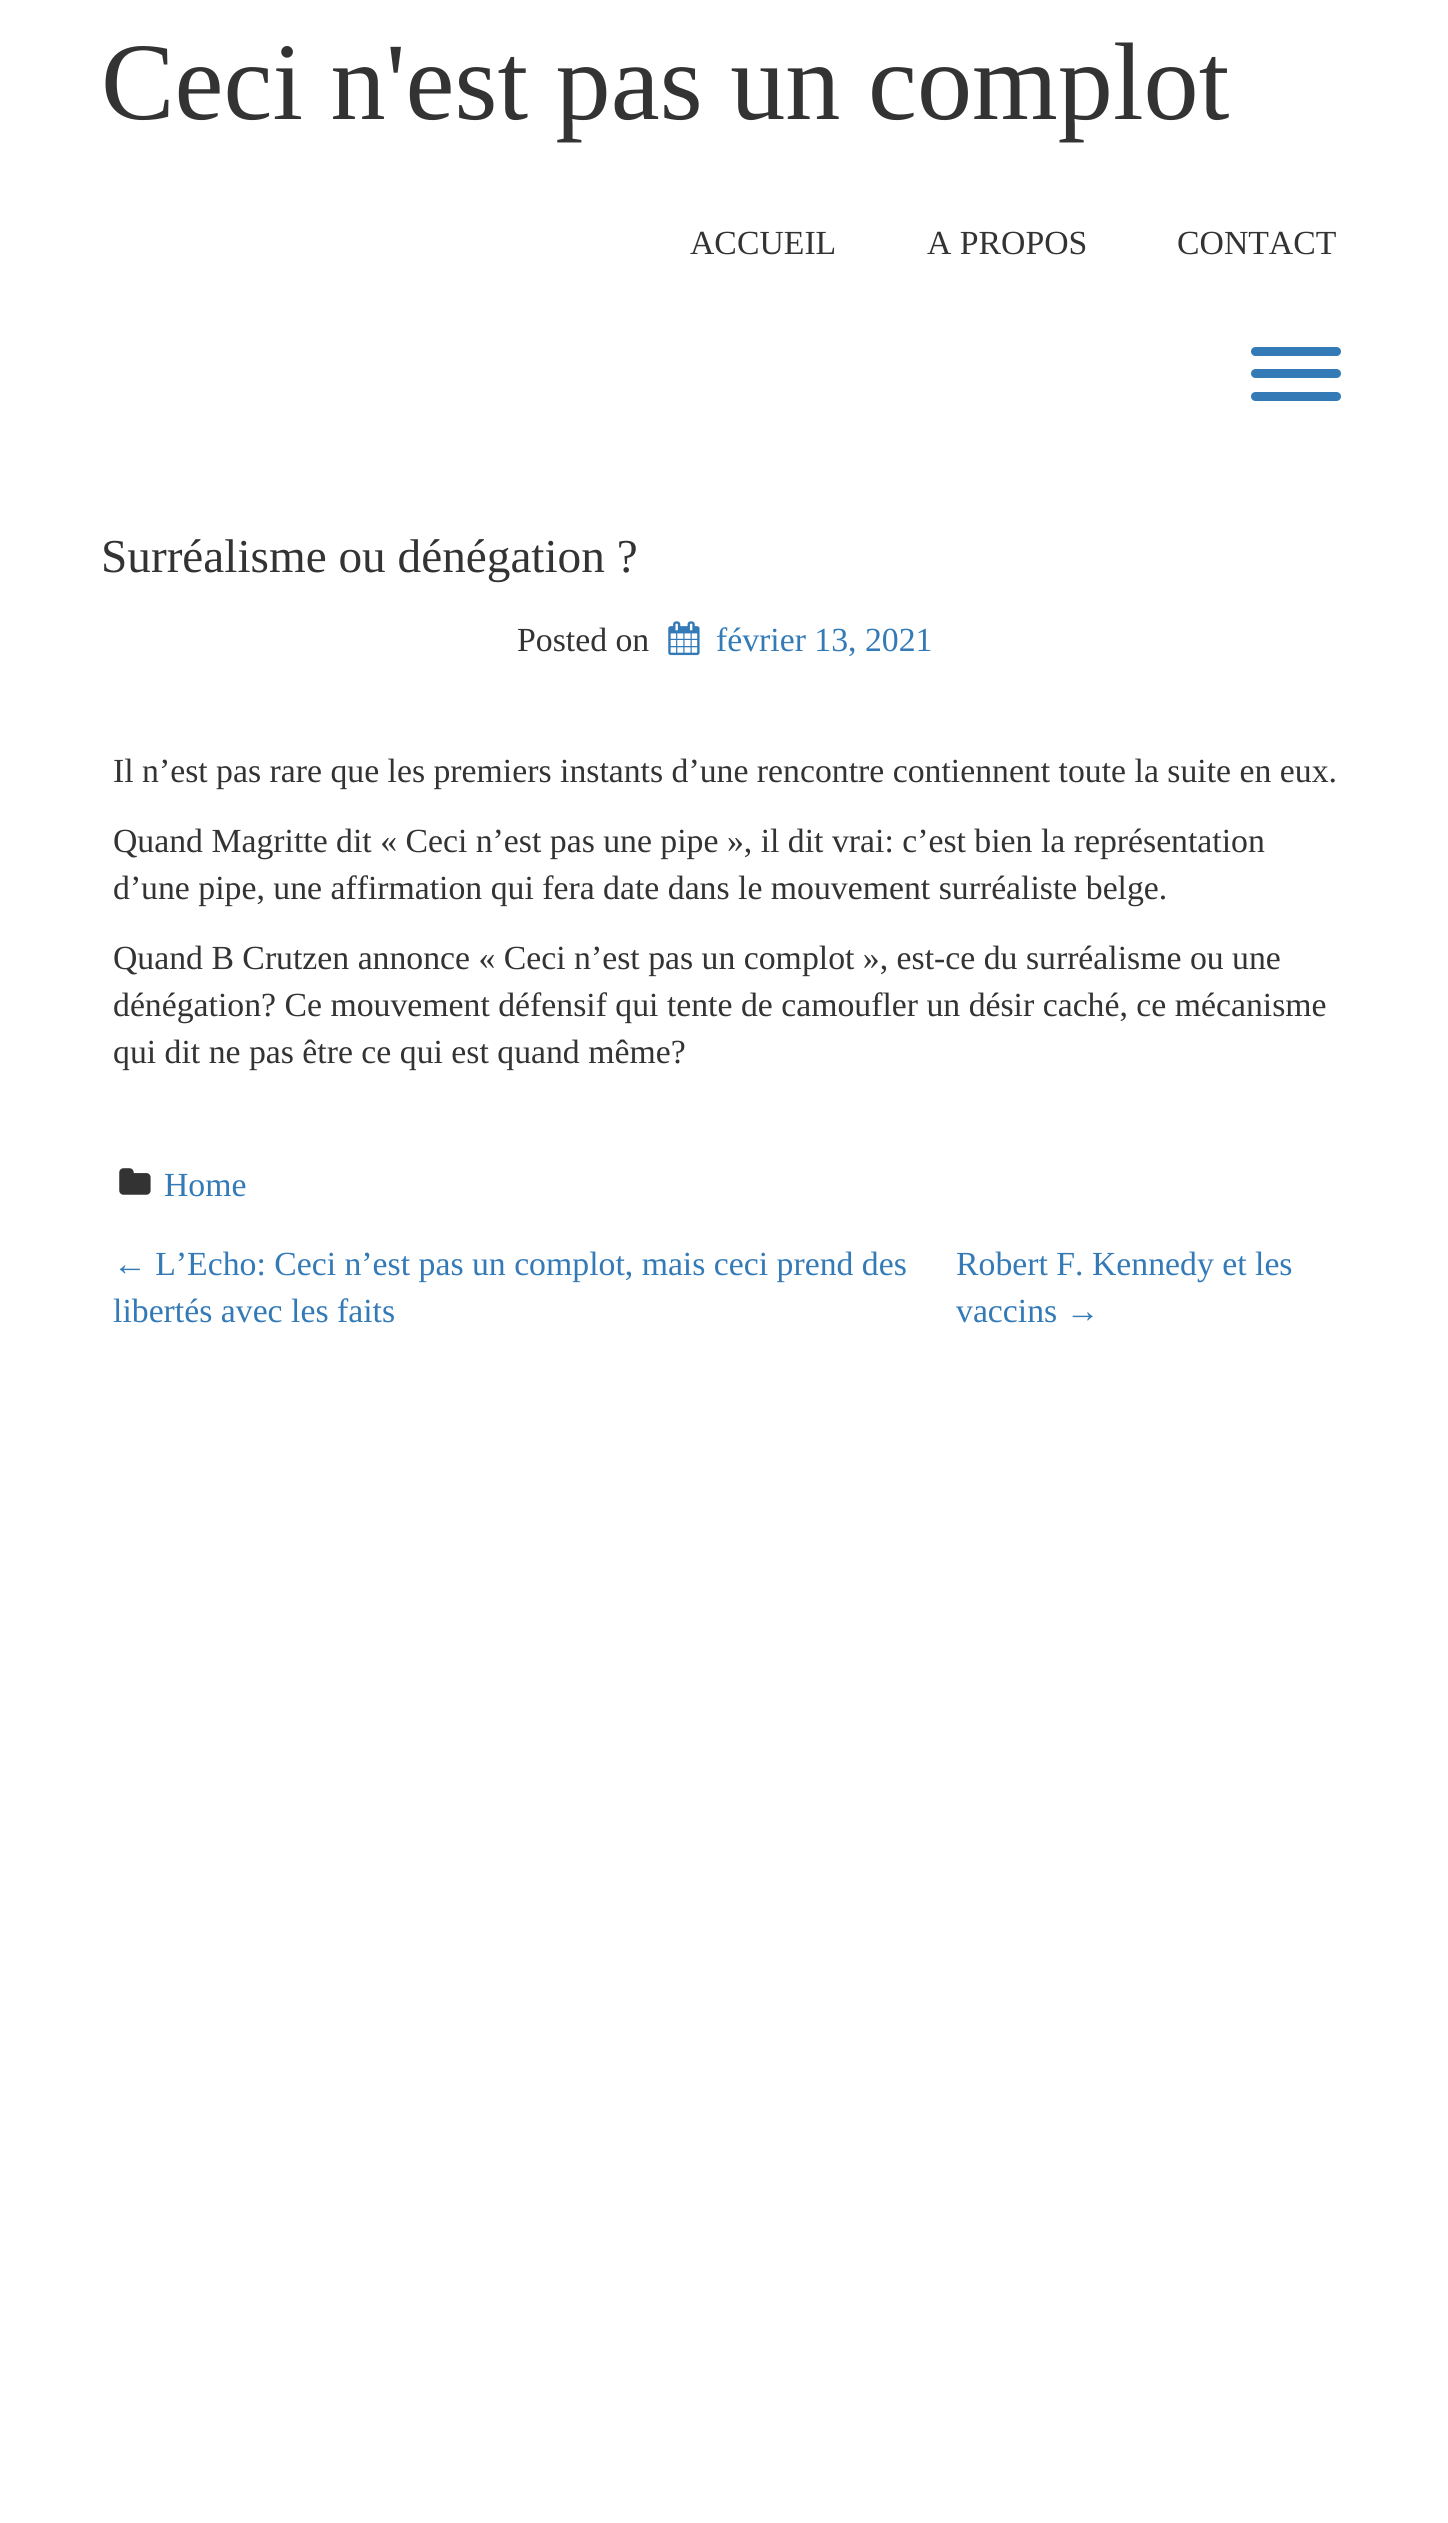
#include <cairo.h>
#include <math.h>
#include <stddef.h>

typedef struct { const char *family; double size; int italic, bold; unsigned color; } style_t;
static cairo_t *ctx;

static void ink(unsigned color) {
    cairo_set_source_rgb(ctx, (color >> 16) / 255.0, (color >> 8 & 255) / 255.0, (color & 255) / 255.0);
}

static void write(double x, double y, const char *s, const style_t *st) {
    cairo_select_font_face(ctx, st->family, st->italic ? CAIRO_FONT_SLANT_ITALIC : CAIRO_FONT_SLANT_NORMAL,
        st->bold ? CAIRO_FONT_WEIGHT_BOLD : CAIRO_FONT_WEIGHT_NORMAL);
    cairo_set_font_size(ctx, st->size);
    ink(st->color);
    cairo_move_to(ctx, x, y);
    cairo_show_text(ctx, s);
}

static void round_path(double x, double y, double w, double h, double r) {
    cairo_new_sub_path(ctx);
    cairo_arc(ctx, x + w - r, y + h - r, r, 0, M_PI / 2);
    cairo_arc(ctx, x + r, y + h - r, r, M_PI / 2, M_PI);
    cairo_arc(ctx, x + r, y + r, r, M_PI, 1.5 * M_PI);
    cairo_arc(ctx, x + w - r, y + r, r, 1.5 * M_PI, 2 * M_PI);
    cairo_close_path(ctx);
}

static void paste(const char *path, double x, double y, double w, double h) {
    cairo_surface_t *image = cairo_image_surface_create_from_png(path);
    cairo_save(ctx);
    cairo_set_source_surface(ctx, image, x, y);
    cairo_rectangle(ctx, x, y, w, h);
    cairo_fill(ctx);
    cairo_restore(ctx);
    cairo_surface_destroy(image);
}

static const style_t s1 = {"Liberation Serif", 110.25, 0, 0, 0x333333};
static const style_t s2 = {"Liberation Serif", 33.75, 0, 0, 0x333333};
static const style_t s3 = {"Liberation Serif", 47.25, 0, 0, 0x333333};
static const style_t s4 = {"Liberation Serif", 33.75, 0, 0, 0x337ab7};

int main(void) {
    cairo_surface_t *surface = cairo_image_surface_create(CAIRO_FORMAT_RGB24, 1448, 2523);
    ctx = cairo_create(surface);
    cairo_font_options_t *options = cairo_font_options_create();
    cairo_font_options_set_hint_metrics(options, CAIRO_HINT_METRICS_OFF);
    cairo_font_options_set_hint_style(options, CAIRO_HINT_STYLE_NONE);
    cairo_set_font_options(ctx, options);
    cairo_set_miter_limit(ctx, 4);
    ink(0xffffff);
    cairo_paint(ctx);
    write(101, 119, "Ceci n'est pas un complot", &s1);
    write(690, 254, "ACCUEIL", &s2);
    write(927, 254, "A PROPOS", &s2);
    write(1177, 254, "CONTACT", &s2);
    ink(0x337ab7);
    round_path(1251, 392, 90, 9, 4.5);
    cairo_fill(ctx);
    round_path(1251, 347, 90, 9, 4.5);
    cairo_fill(ctx);
    round_path(1251, 369, 90, 9, 4.5);
    cairo_fill(ctx);
    write(101, 572, "Surréalisme ou dénégation ?", &s3);
    write(517, 651, "Posted on", &s2);
    paste("pic1.png", 668, 621, 32, 35);
    write(716, 651, "février 13, 2021", &s4);
    write(113, 782, "Il n’est pas rare que les premiers instants d’une rencontre contiennent toute la suite en eux.", &s2);
    write(113, 852, "Quand Magritte dit « Ceci n’est pas une pipe », il dit vrai: c’est bien la représentation", &s2);
    write(113, 899, "d’une pipe, une affirmation qui fera date dans le mouvement surréaliste belge.", &s2);
    write(113, 969, "Quand B Crutzen annonce « Ceci n’est pas un complot », est-ce du surréalisme ou une", &s2);
    write(113, 1016, "dénégation? Ce mouvement défensif qui tente de camoufler un désir caché, ce mécanisme", &s2);
    write(113, 1063, "qui dit ne pas être ce qui est quand même?", &s2);
    paste("pic2.png", 119, 1168, 32, 27);
    write(164, 1196, "Home", &s4);
    write(113, 1275, "← L’Echo: Ceci n’est pas un complot, mais ceci prend des", &s4);
    write(113, 1322, "libertés avec les faits", &s4);
    write(956, 1275, "Robert F. Kennedy et les", &s4);
    write(956, 1322, "vaccins →", &s4);
    cairo_surface_write_to_png(surface, "screenshot.png");
    cairo_font_options_destroy(options);
    cairo_destroy(ctx);
    cairo_surface_destroy(surface);
    return 0;
}
